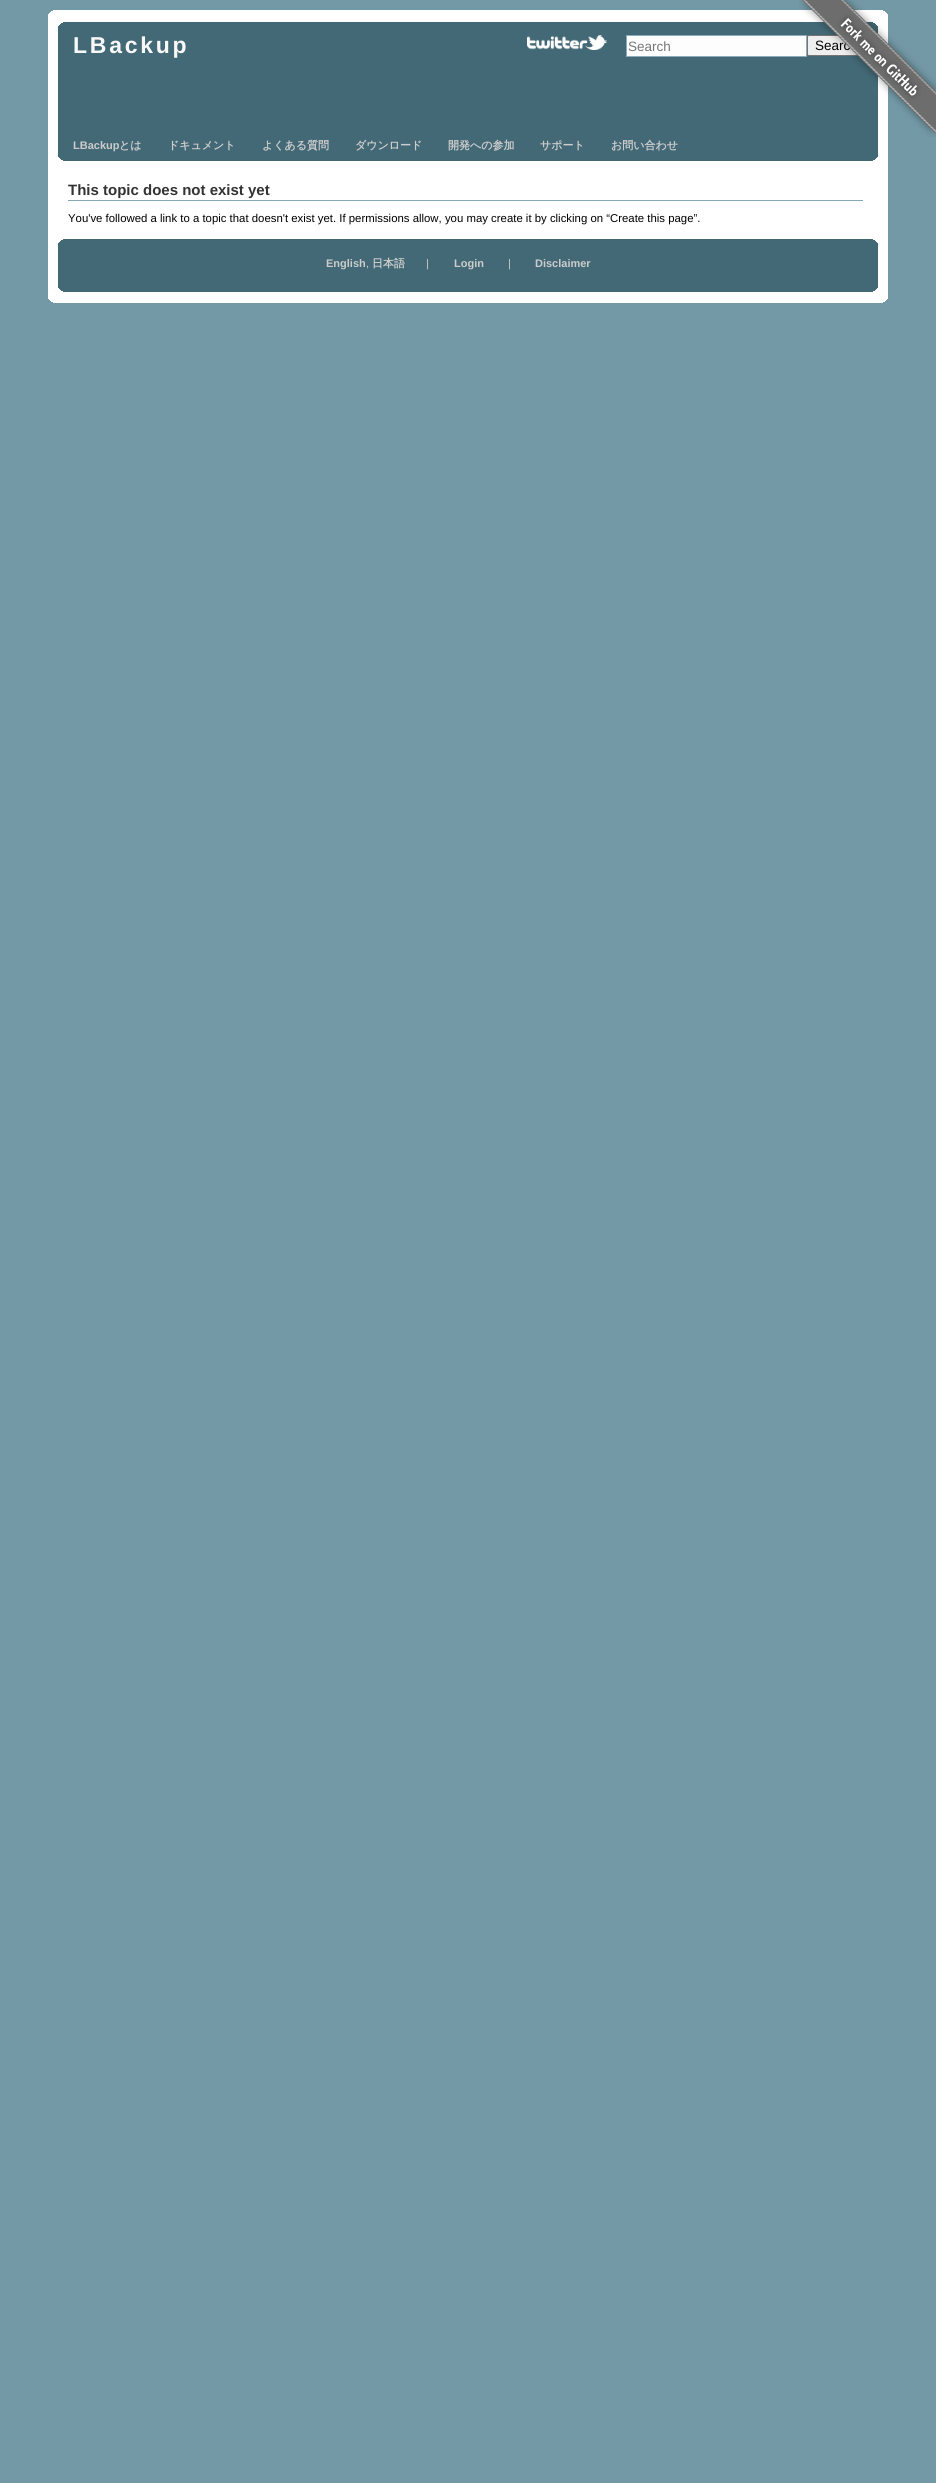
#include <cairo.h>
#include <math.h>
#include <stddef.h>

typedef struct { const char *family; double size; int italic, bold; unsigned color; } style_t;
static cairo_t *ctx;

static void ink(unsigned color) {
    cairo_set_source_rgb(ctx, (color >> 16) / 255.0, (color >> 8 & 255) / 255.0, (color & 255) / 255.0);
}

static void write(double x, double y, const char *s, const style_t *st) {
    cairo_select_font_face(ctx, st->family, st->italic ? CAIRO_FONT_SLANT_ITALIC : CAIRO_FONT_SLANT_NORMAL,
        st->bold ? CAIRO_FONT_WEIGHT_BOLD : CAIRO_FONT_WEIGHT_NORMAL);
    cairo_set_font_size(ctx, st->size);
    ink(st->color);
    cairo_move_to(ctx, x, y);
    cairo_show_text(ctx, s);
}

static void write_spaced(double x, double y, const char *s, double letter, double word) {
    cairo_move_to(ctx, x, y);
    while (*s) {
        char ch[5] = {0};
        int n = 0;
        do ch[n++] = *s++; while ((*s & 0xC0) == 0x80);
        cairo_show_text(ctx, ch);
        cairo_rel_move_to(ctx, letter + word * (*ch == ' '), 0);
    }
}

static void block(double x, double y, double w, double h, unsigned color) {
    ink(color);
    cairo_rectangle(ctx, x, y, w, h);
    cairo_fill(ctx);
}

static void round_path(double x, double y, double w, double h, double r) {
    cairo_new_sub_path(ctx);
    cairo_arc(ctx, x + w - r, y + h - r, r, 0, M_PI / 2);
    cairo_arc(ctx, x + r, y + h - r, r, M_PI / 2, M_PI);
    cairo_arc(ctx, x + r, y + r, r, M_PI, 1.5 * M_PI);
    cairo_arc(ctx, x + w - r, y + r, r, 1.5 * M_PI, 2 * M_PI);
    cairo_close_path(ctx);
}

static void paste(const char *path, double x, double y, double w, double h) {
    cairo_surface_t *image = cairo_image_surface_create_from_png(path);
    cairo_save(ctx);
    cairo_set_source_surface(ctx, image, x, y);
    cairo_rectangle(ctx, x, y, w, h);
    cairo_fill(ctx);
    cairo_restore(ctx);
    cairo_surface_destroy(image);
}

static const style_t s1 = {"Liberation Sans", 13.5, 0, 0, 0x757575};
static const style_t s2 = {"Liberation Sans", 13.5, 0, 0, 0x000000};
static const style_t s3 = {"Liberation Sans", 11, 0, 1, 0xcccccc};
static const style_t s4 = {"WenQuanYi Zen Hei", 11, 0, 1, 0xcccccc};
static const style_t s5 = {"Liberation Sans", 15, 0, 1, 0x333333};
static const style_t s6 = {"Liberation Sans", 11.38, 0, 0, 0x000000};
static const style_t s7 = {"Liberation Sans", 11, 0, 0, 0xcccccc};

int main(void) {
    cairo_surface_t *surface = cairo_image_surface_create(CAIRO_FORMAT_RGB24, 936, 2483);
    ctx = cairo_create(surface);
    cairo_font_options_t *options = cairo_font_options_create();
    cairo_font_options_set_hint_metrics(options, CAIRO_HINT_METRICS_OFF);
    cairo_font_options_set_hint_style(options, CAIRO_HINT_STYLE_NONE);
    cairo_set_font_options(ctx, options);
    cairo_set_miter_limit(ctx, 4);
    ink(0x7399a6);
    cairo_paint(ctx);
    block(48, 14, 840, 285, 0xffffff);
    block(53, 10, 830, 1, 0xffffff);
    block(51, 11, 834, 1, 0xffffff);
    block(50, 12, 836, 1, 0xffffff);
    block(49, 13, 838, 1, 0xffffff);
    block(58, 26, 820, 131, 0x436976);
    block(63, 22, 810, 1, 0x436976);
    block(61, 23, 814, 1, 0x436976);
    block(60, 24, 816, 1, 0x436976);
    block(59, 25, 818, 1, 0x436976);
    cairo_select_font_face(ctx, "Liberation Sans", CAIRO_FONT_SLANT_NORMAL, CAIRO_FONT_WEIGHT_BOLD);
    cairo_set_font_size(ctx, 23);
    ink(0xf8f8f8);
    write_spaced(73, 53, "LBackup", 2.75, 0);
    paste("pic1.png", 527, 35, 80, 15);
    ink(0xfdfdfd);
    cairo_rectangle(ctx, 626.5, 35.5, 180, 21);
    cairo_fill_preserve(ctx);
    ink(0x8cacbb);
    cairo_set_line_width(ctx, 1);
    cairo_stroke(ctx);
    write(628, 51, "Search", &s1);
    ink(0xefefef);
    round_path(807.5, 35.5, 57, 20, 1.5);
    cairo_fill_preserve(ctx);
    ink(0x767676);
    cairo_stroke(ctx);
    write(815, 50, "Searc", &s2);
    write(73, 149, "LBackup", &s3);
    write(119, 149, "とは", &s4);
    write(168, 149, "ドキュメント", &s4);
    write(262, 149, "よくある質問", &s4);
    write(355, 149, "ダウンロード", &s4);
    write(448, 149, "開発への参加", &s4);
    write(540, 149, "サポート", &s4);
    write(611, 149, "お問い合わせ", &s4);
    block(59, 157, 818, 1, 0x436976);
    block(60, 158, 816, 1, 0x436976);
    block(61, 159, 814, 1, 0x436976);
    block(63, 160, 810, 1, 0x436976);
    block(68, 200, 795, 1, 0x83a9b6);
    write(68, 195, "This topic does not exist yet", &s5);
    write(68, 222, "You've followed a link to a topic that doesn't exist yet. If permissions allow, you may create it by clicking on “Create this page”.", &s6);
    block(58, 243, 820, 45, 0x436976);
    block(63, 239, 810, 1, 0x436976);
    block(61, 240, 814, 1, 0x436976);
    block(60, 241, 816, 1, 0x436976);
    block(59, 242, 818, 1, 0x436976);
    write(326, 267, "English", &s3);
    write(366, 267, ",", &s7);
    write(372, 267, "日本語", &s4);
    write(426, 267, "|", &s7);
    write(454, 267, "Login", &s3);
    write(508, 267, "|", &s7);
    write(535, 267, "Disclaimer", &s3);
    block(59, 288, 818, 1, 0x436976);
    block(60, 289, 816, 1, 0x436976);
    block(61, 290, 814, 1, 0x436976);
    block(63, 291, 810, 1, 0x436976);
    block(49, 299, 838, 1, 0xffffff);
    block(50, 300, 836, 1, 0xffffff);
    block(51, 301, 834, 1, 0xffffff);
    block(53, 302, 830, 1, 0xffffff);
    paste("pic2.png", 799, 0, 137, 137);
    cairo_surface_write_to_png(surface, "screenshot.png");
    cairo_font_options_destroy(options);
    cairo_destroy(ctx);
    cairo_surface_destroy(surface);
    return 0;
}
